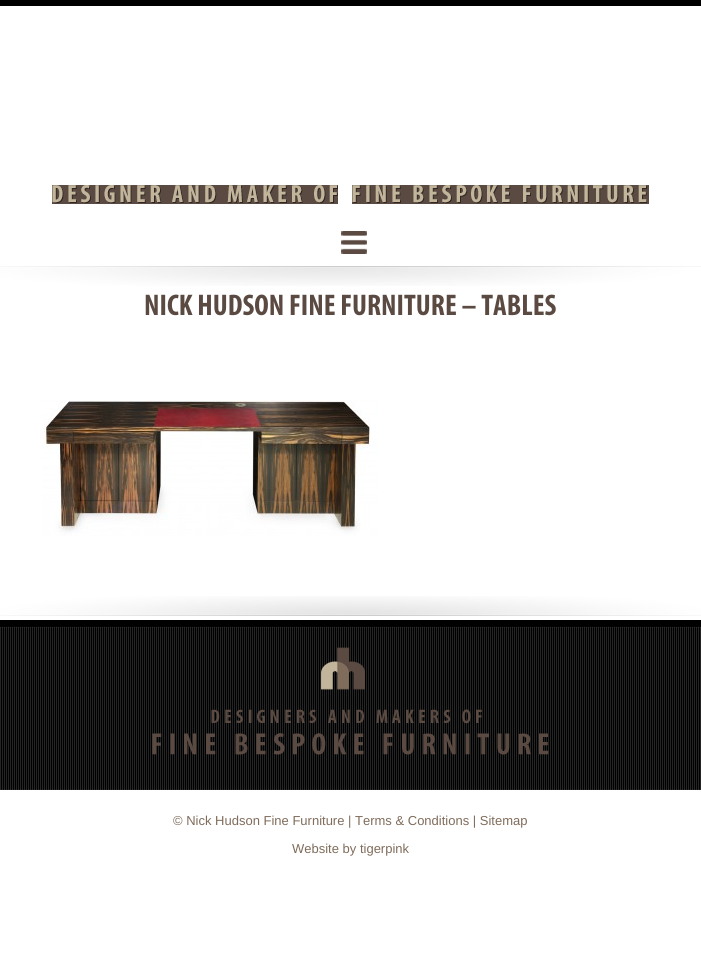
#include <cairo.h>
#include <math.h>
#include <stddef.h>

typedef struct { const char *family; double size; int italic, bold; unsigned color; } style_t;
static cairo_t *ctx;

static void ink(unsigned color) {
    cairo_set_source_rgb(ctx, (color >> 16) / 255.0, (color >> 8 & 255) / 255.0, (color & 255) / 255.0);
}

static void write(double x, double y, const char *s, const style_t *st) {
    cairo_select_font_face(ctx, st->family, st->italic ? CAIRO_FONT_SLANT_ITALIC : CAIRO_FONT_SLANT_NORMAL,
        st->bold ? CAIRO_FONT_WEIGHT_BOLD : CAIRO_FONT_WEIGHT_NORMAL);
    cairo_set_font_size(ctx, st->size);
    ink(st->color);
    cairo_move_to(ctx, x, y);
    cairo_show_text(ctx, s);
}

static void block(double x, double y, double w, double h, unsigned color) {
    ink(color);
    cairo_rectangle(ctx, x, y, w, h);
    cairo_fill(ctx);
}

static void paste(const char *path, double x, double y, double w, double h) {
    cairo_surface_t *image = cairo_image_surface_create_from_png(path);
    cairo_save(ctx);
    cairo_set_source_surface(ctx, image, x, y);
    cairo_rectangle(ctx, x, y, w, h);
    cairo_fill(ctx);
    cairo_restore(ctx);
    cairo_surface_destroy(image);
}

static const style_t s1 = {"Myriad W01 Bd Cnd", 30, 0, 1, 0x5a4a42};
static const style_t s2 = {"Liberation Sans", 13, 0, 0, 0x7f6c5b};

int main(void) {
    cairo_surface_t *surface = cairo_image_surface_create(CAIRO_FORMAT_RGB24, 701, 963);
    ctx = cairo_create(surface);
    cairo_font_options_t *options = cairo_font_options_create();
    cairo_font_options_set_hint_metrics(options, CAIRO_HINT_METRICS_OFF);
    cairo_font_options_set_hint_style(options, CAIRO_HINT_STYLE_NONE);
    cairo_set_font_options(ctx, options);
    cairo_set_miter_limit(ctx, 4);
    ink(0xffffff);
    cairo_paint(ctx);
    block(0, 0, 701, 6, 0x000000);
    paste("pic1.png", 52, 185, 286, 19);
    paste("pic2.png", 352, 185, 297, 19);
    paste("pic3.png", 341, 231, 26, 23);
    paste("pic4.png", 0, 266, 701, 20);
    paste("pic5.png", 0, 596, 701, 20);
    write(144, 315, "NICK HUDSON FINE FURNITURE – TABLES", &s1);
    paste("pic6.png", 42, 400, 336, 136);
    paste("pic7.png", 0, 620, 701, 170);
    paste("pic8.png", 152, 647, 397, 108);
    write(173, 825, "© Nick Hudson Fine Furniture | Terms & Conditions | Sitemap", &s2);
    write(292, 853, "Website by tigerpink", &s2);
    cairo_surface_write_to_png(surface, "screenshot.png");
    cairo_font_options_destroy(options);
    cairo_destroy(ctx);
    cairo_surface_destroy(surface);
    return 0;
}
